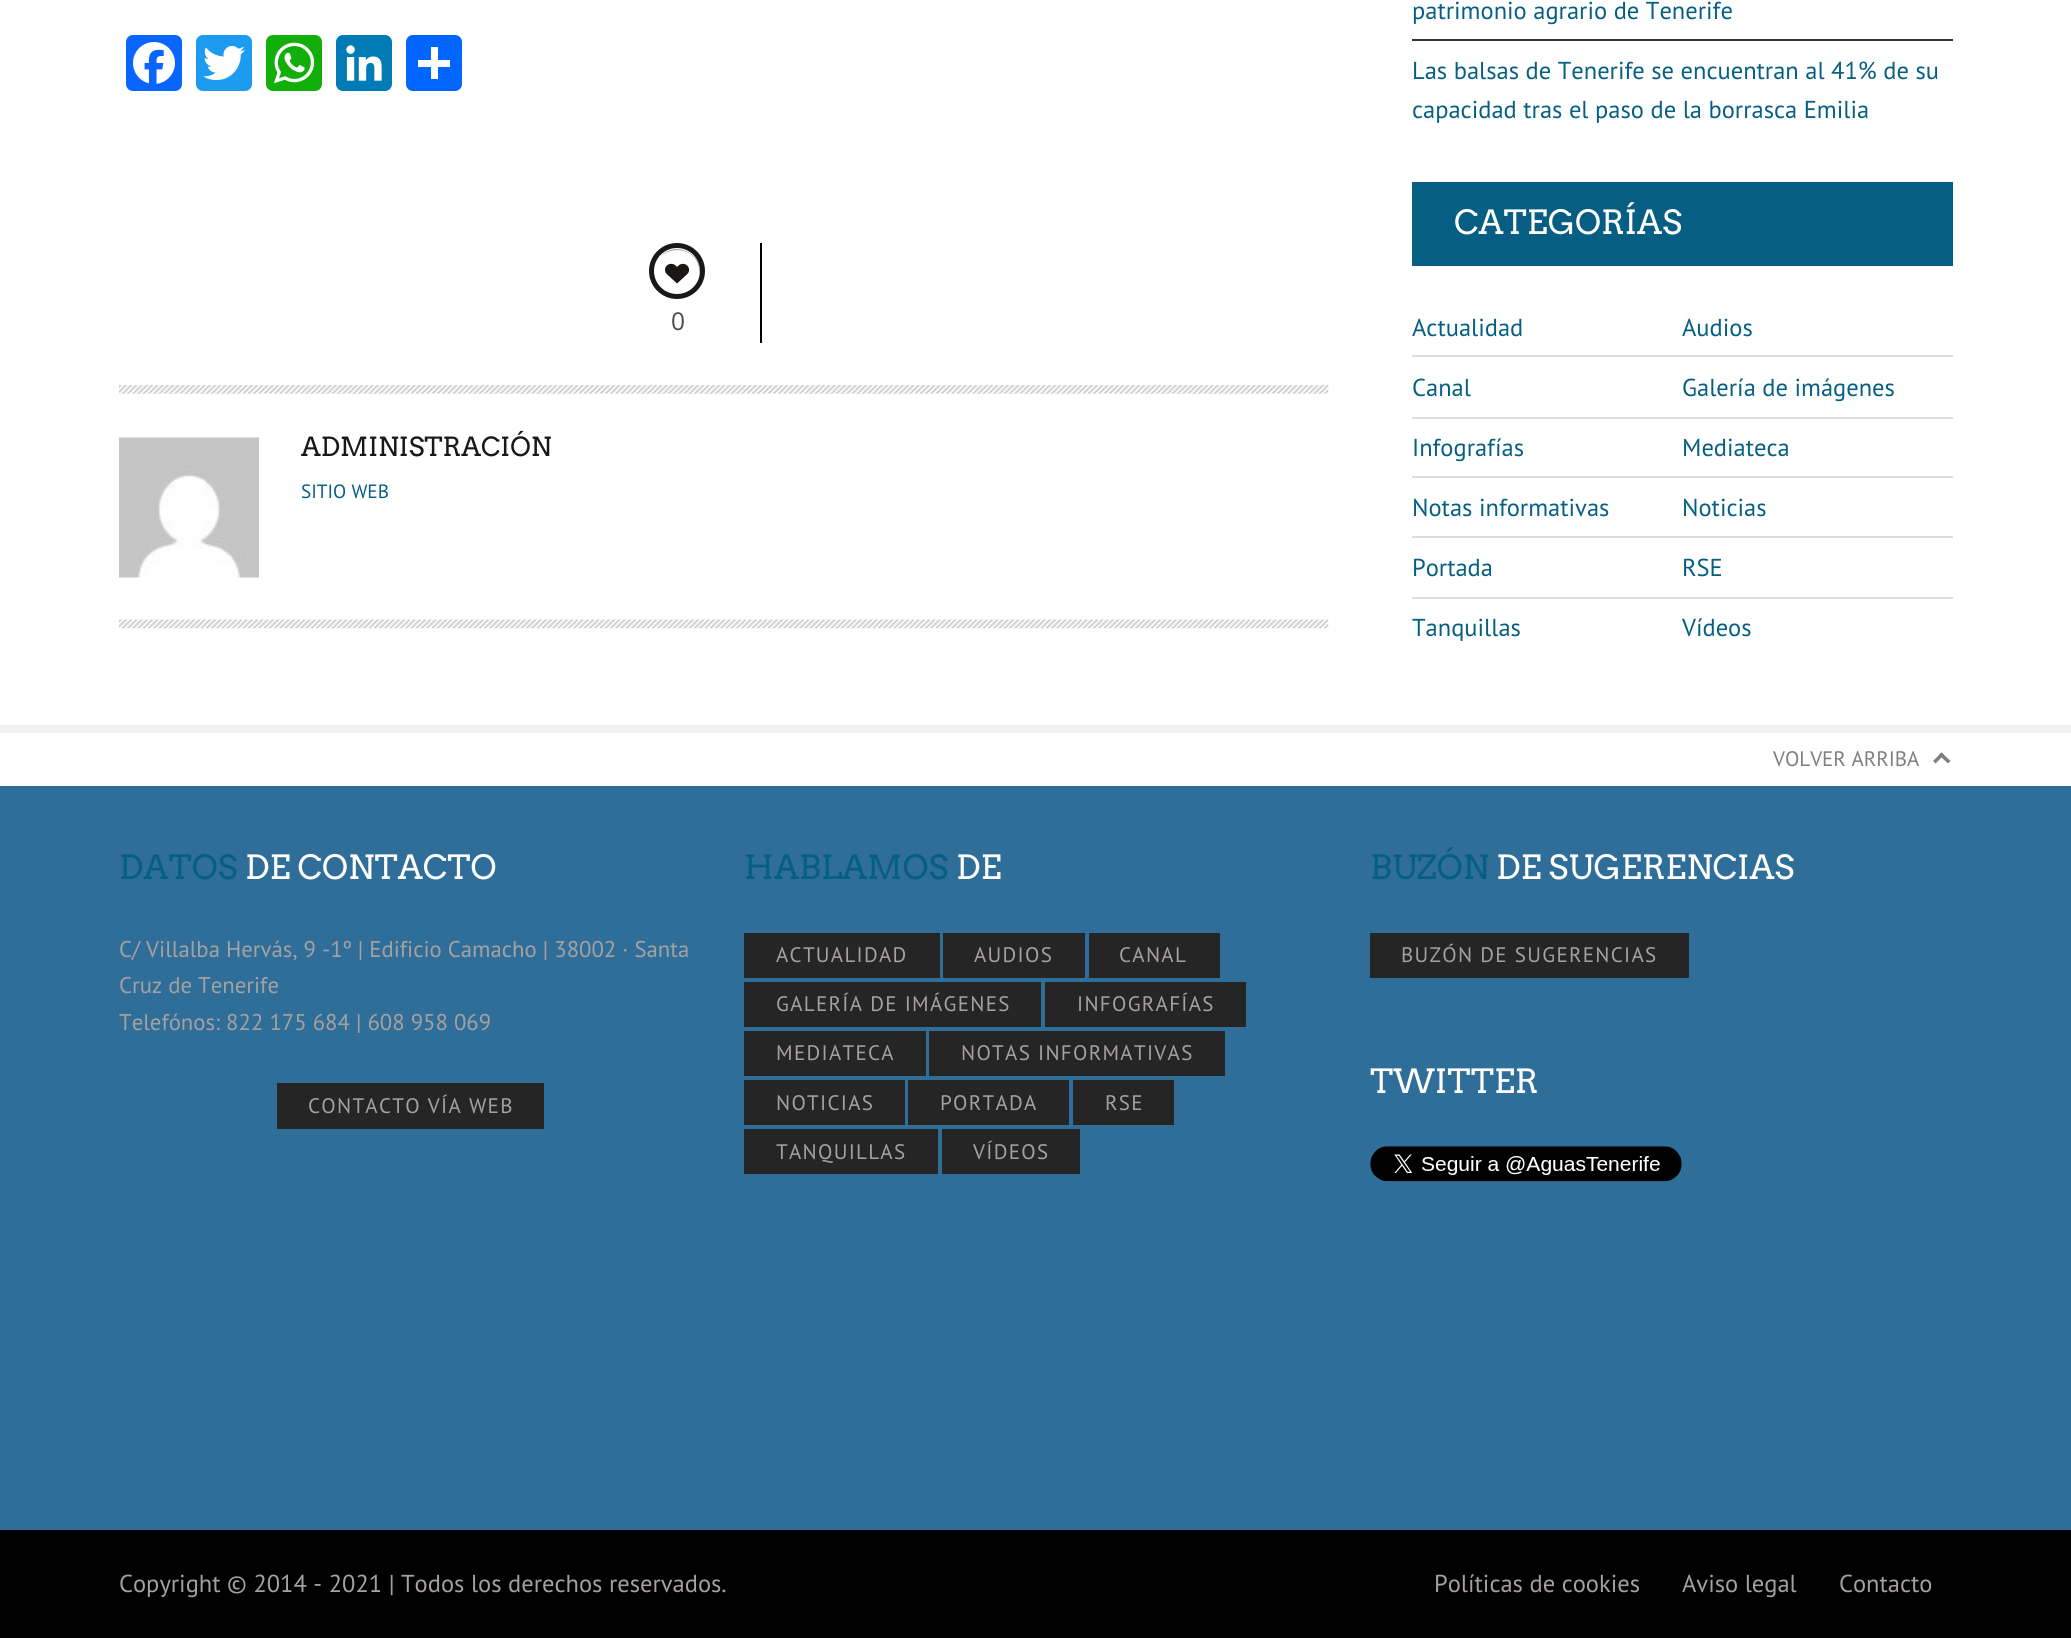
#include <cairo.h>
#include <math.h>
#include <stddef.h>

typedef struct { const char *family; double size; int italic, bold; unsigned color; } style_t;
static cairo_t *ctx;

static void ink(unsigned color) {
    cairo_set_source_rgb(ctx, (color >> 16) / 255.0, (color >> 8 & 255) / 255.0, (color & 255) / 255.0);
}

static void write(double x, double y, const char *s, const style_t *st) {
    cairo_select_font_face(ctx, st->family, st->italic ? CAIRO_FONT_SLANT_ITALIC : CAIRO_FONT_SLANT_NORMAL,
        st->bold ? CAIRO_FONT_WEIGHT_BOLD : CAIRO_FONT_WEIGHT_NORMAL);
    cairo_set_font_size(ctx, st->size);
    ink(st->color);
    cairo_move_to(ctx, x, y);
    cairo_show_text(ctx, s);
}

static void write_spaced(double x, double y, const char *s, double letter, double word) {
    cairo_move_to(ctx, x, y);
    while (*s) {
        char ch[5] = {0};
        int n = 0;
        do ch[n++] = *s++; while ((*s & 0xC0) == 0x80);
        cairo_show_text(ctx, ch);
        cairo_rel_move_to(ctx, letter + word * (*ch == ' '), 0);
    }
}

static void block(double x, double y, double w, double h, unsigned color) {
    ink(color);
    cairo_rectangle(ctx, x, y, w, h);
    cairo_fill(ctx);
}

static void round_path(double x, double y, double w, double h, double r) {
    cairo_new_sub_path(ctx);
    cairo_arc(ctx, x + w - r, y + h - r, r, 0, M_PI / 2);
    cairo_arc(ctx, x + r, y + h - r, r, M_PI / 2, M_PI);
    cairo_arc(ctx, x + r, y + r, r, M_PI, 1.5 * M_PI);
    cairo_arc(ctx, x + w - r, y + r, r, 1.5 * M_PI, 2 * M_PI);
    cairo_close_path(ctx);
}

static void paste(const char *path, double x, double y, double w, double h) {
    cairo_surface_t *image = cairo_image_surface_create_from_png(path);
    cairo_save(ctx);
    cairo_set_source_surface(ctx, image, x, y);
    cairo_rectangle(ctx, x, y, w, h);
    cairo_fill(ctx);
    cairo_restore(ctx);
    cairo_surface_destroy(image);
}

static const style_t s1 = {"Open Sans", 24.5, 0, 0, 0x4c4a4a};
static const style_t s2 = {"Arvo", 26.25, 0, 0, 0x1a1717};
static const style_t s3 = {"PT Sans", 19.25, 0, 0, 0x065f82};
static const style_t s4 = {"PT Sans", 24.5, 0, 0, 0x065f82};
static const style_t s5 = {"Arvo", 33.25, 0, 0, 0xffffff};
static const style_t s6 = {"PT Sans", 21, 0, 0, 0x807f7e};
static const style_t s7 = {"Arvo", 33.25, 0, 0, 0x065f82};
static const style_t s8 = {"PT Sans", 22.75, 0, 0, 0xa6a1a1};
static const style_t s9 = {"PT Sans", 24.5, 0, 0, 0xa6a1a1};

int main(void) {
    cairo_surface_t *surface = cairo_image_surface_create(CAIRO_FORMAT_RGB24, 2071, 1638);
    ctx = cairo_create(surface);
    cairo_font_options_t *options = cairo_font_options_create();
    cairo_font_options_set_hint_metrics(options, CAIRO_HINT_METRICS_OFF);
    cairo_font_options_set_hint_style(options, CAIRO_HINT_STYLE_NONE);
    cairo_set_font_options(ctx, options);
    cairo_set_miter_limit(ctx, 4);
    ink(0xffffff);
    cairo_paint(ctx);
    ink(0x0866ff);
    round_path(126, 35, 56, 56, 7);
    cairo_fill(ctx);
    paste("pic1.png", 133, 42, 42, 42);
    ink(0x1d9bf0);
    round_path(196, 35, 56, 56, 7);
    cairo_fill(ctx);
    paste("pic2.png", 203, 45, 42, 36);
    ink(0x12af0a);
    round_path(266, 35, 56, 56, 7);
    cairo_fill(ctx);
    paste("pic3.png", 274, 42, 41, 42);
    ink(0x007bb5);
    round_path(336, 35, 56, 56, 7);
    cairo_fill(ctx);
    paste("pic4.png", 346, 45, 36, 36);
    ink(0x0166ff);
    round_path(406, 35, 56, 56, 7);
    cairo_fill(ctx);
    block(431, 47, 7, 32, 0xffffff);
    block(418, 60, 32, 7, 0xffffff);
    ink(0x808080);
    cairo_new_path(ctx);
    cairo_move_to(ctx, 677, 250);
    cairo_curve_to(ctx, 694, 250, 702, 265, 699, 278);
    cairo_curve_to(ctx, 706, 255, 676, 239, 660, 257);
    cairo_curve_to(ctx, 664, 253, 670, 250, 677, 250);
    cairo_close_path(ctx);
    cairo_fill(ctx);
    cairo_arc(ctx, 677, 271, 25.5, 0, 2 * M_PI);
    ink(0x1a1717);
    cairo_set_line_width(ctx, 5);
    cairo_stroke(ctx);
    paste("pic5.png", 665, 263, 25, 21);
    block(760, 243, 2, 100, 0x000000);
    write(671, 330, "0", &s1);
    paste("pic6.png", 119, 385, 1210, 9);
    paste("pic7.png", 119, 437, 140, 141);
    write(301, 456, "ADMINISTRACIÓN", &s2);
    write(301, 498, "SITIO WEB", &s3);
    paste("pic8.png", 119, 619, 1210, 10);
    write(1412, 19, "patrimonio agrario de Tenerife", &s4);
    block(1412, 39, 541, 2, 0x333131);
    write(1412, 79, "Las balsas de Tenerife se encuentran al 41% de su", &s4);
    write(1412, 118, "capacidad tras el paso de la borrasca Emilia", &s4);
    block(1412, 182, 541, 84, 0x065f82);
    write(1454, 234, "CATEGORÍAS", &s5);
    write(1412, 336, "Actualidad", &s4);
    write(1682, 336, "Audios", &s4);
    block(1412, 355, 541, 2, 0xdddddd);
    write(1412, 396, "Canal", &s4);
    write(1682, 396, "Galería de imágenes", &s4);
    block(1412, 417, 541, 2, 0xdddddd);
    write(1412, 456, "Infografías", &s4);
    write(1682, 456, "Mediateca", &s4);
    block(1412, 476, 541, 2, 0xdddddd);
    write(1412, 516, "Notas informativas", &s4);
    write(1682, 516, "Noticias", &s4);
    block(1412, 536, 541, 2, 0xdddddd);
    write(1412, 576, "Portada", &s4);
    write(1682, 576, "RSE", &s4);
    block(1412, 597, 541, 2, 0xdddddd);
    write(1412, 636, "Tanquillas", &s4);
    write(1682, 636, "Vídeos", &s4);
    block(0, 725, 2071, 8, 0xf2f2f2);
    write(1773, 766, "VOLVER ARRIBA", &s6);
    cairo_new_path(ctx);
    cairo_move_to(ctx, 1933, 761);
    cairo_line_to(ctx, 1941.5, 752.5);
    cairo_line_to(ctx, 1944, 755);
    cairo_line_to(ctx, 1935.5, 763.5);
    cairo_close_path(ctx);
    cairo_fill(ctx);
    cairo_new_path(ctx);
    cairo_move_to(ctx, 1939, 755);
    cairo_line_to(ctx, 1941.5, 752.5);
    cairo_line_to(ctx, 1950.5, 761);
    cairo_line_to(ctx, 1948, 763.5);
    cairo_close_path(ctx);
    cairo_fill(ctx);
    block(0, 786, 2071, 744, 0x2f6e99);
    write(119, 879, "DATOS", &s7);
    write(245, 879, "DE CONTACTO", &s5);
    write(119, 957, "C/ Villalba Hervás, 9 -1º | Edificio Camacho | 38002 · Santa", &s8);
    write(119, 993, "Cruz de Tenerife", &s8);
    write(119, 1030, "Telefónos: 822 175 684 | 608 958 069", &s8);
    block(277, 1083, 267, 46, 0x262525);
    cairo_set_font_size(ctx, 21);
    ink(0xa6a1a1);
    write_spaced(308, 1113, "CONTACTO VÍA WEB", 1.3, 0);
    write(744, 879, "HABLAMOS", &s7);
    write(956, 879, "DE", &s5);
    block(744, 933, 196, 45, 0x262525);
    cairo_select_font_face(ctx, "PT Sans", CAIRO_FONT_SLANT_NORMAL, CAIRO_FONT_WEIGHT_NORMAL);
    cairo_set_font_size(ctx, 21);
    ink(0xa6a1a1);
    write_spaced(776, 962, "ACTUALIDAD", 1.3, 0);
    block(943, 933, 142, 45, 0x262525);
    ink(0xa6a1a1);
    write_spaced(974, 962, "AUDIOS", 1.3, 0);
    block(1089, 933, 131, 45, 0x262525);
    ink(0xa6a1a1);
    write_spaced(1119, 962, "CANAL", 1.3, 0);
    block(744, 982, 297, 45, 0x262525);
    ink(0xa6a1a1);
    write_spaced(776, 1011, "GALERÍA DE IMÁGENES", 1.3, 0);
    block(1045, 982, 201, 45, 0x262525);
    ink(0xa6a1a1);
    write_spaced(1077, 1011, "INFOGRAFÍAS", 1.3, 0);
    block(744, 1031, 182, 45, 0x262525);
    ink(0xa6a1a1);
    write_spaced(776, 1060, "MEDIATECA", 1.3, 0);
    block(929, 1031, 296, 45, 0x262525);
    ink(0xa6a1a1);
    write_spaced(961, 1060, "NOTAS INFORMATIVAS", 1.3, 0);
    block(744, 1080, 161, 45, 0x262525);
    ink(0xa6a1a1);
    write_spaced(776, 1110, "NOTICIAS", 1.3, 0);
    block(908, 1080, 161, 45, 0x262525);
    ink(0xa6a1a1);
    write_spaced(940, 1110, "PORTADA", 1.3, 0);
    block(1073, 1080, 101, 45, 0x262525);
    ink(0xa6a1a1);
    write_spaced(1105, 1110, "RSE", 1.3, 0);
    block(744, 1129, 194, 45, 0x262525);
    ink(0xa6a1a1);
    write_spaced(776, 1159, "TANQUILLAS", 1.3, 0);
    block(942, 1129, 138, 45, 0x262525);
    ink(0xa6a1a1);
    write_spaced(973, 1159, "VÍDEOS", 1.3, 0);
    write(1370, 879, "BUZÓN", &s7);
    write(1496, 879, "DE SUGERENCIAS", &s5);
    block(1370, 933, 319, 45, 0x262525);
    cairo_select_font_face(ctx, "PT Sans", CAIRO_FONT_SLANT_NORMAL, CAIRO_FONT_WEIGHT_NORMAL);
    cairo_set_font_size(ctx, 21);
    ink(0xa6a1a1);
    write_spaced(1401, 962, "BUZÓN DE SUGERENCIAS", 1.3, 0);
    write(1370, 1093, "TWITTER", &s5);
    paste("pic9.png", 1370, 1146, 312, 36);
    block(0, 1530, 2071, 108, 0x000000);
    write(119, 1592, "Copyright © 2014 - 2021 | Todos los derechos reservados.", &s9);
    write(1434, 1592, "Políticas de cookies", &s9);
    write(1682, 1592, "Aviso legal", &s9);
    write(1839, 1592, "Contacto", &s9);
    cairo_surface_write_to_png(surface, "screenshot.png");
    cairo_font_options_destroy(options);
    cairo_destroy(ctx);
    cairo_surface_destroy(surface);
    return 0;
}
